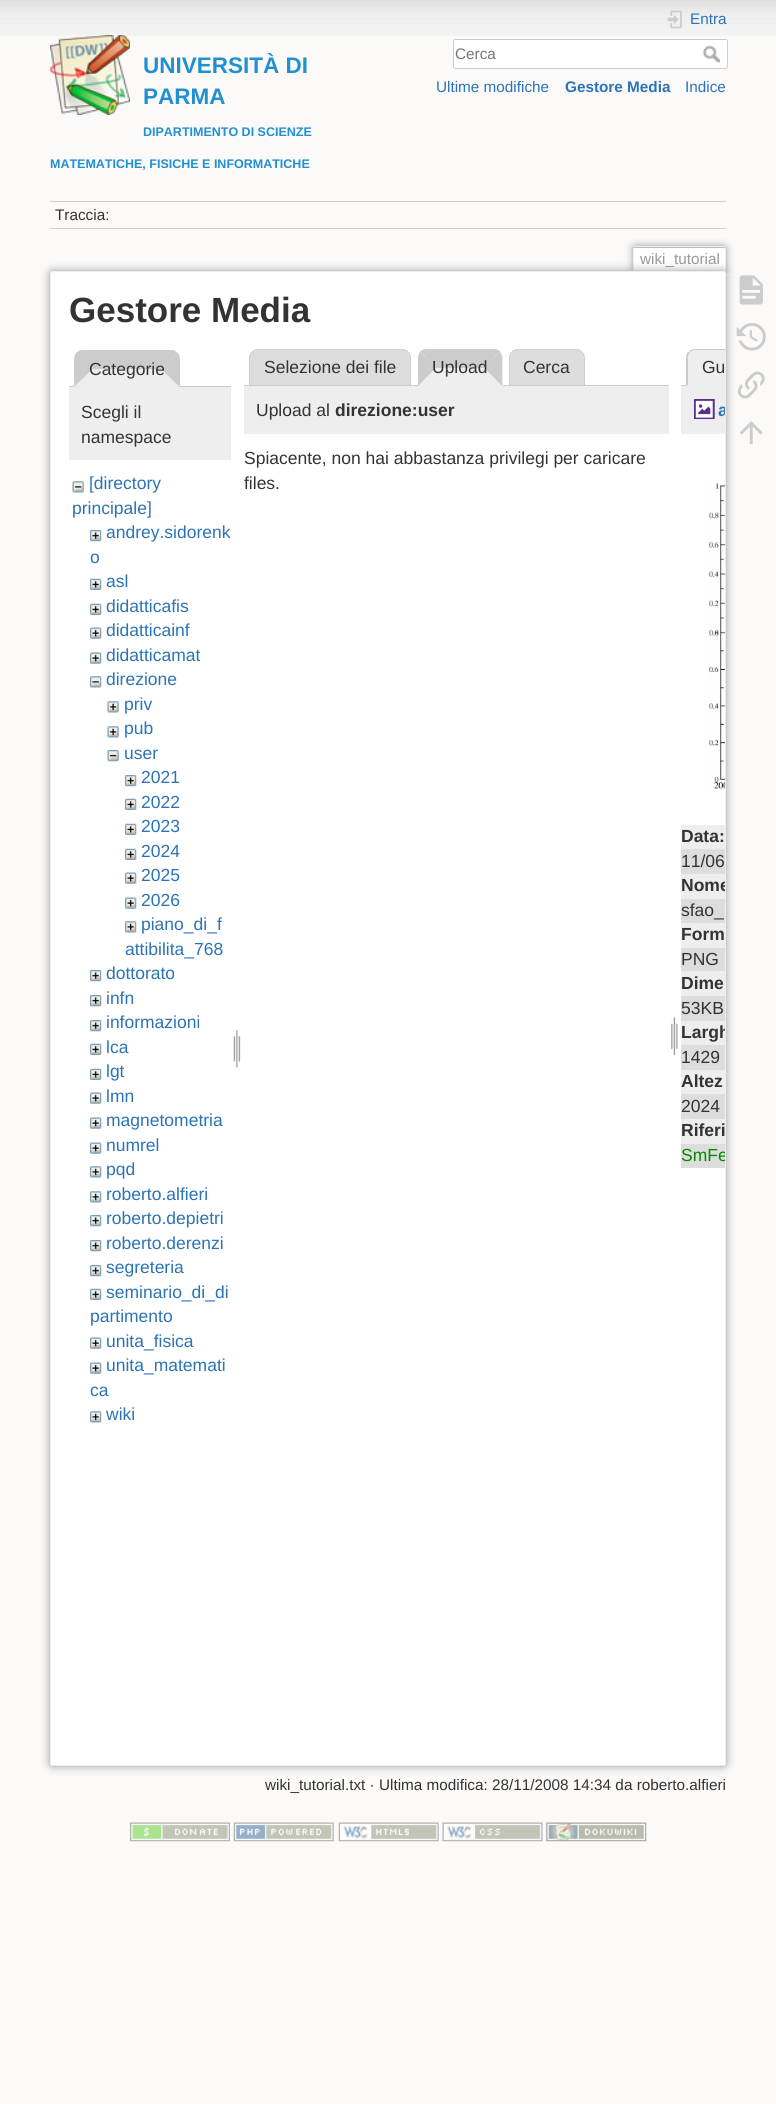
#include <cairo.h>
#include <math.h>
#include <stddef.h>

typedef struct { const char *family; double size; int italic, bold; unsigned color; } style_t;
static cairo_t *ctx;

static void ink(unsigned color) {
    cairo_set_source_rgb(ctx, (color >> 16) / 255.0, (color >> 8 & 255) / 255.0, (color & 255) / 255.0);
}

static void write(double x, double y, const char *s, const style_t *st) {
    cairo_select_font_face(ctx, st->family, st->italic ? CAIRO_FONT_SLANT_ITALIC : CAIRO_FONT_SLANT_NORMAL,
        st->bold ? CAIRO_FONT_WEIGHT_BOLD : CAIRO_FONT_WEIGHT_NORMAL);
    cairo_set_font_size(ctx, st->size);
    ink(st->color);
    cairo_move_to(ctx, x, y);
    cairo_show_text(ctx, s);
}

static void block(double x, double y, double w, double h, unsigned color) {
    ink(color);
    cairo_rectangle(ctx, x, y, w, h);
    cairo_fill(ctx);
}

static void round_path(double x, double y, double w, double h, double r) {
    cairo_new_sub_path(ctx);
    cairo_arc(ctx, x + w - r, y + h - r, r, 0, M_PI / 2);
    cairo_arc(ctx, x + r, y + h - r, r, M_PI / 2, M_PI);
    cairo_arc(ctx, x + r, y + r, r, M_PI, 1.5 * M_PI);
    cairo_arc(ctx, x + w - r, y + r, r, 1.5 * M_PI, 2 * M_PI);
    cairo_close_path(ctx);
}

static void blur_box(double x, double y, double w, double h, double r, double blur, double alpha) {
    cairo_push_group_with_content(ctx, CAIRO_CONTENT_ALPHA);
    cairo_set_operator(ctx, CAIRO_OPERATOR_SOURCE);
    for (int i = 15; i >= -15 && fmin(w, h) + blur * i / 3 > 0; i -= 2) {
        double e = blur * i / 6;
        cairo_set_source_rgba(ctx, 0, 0, 0, alpha * erfc((i - 1) / 8.5) / 2);
        round_path(x - e, y - e, w + 2 * e, h + 2 * e, fmax(0, fmin(r + e + blur * .6, fmin(w, h) / 2 + e)));
        cairo_fill(ctx);
    }
    cairo_pattern_t *soft = cairo_pop_group(ctx);
    cairo_mask(ctx, soft);
    cairo_pattern_destroy(soft);
}

static void paste(const char *path, double x, double y, double w, double h) {
    cairo_surface_t *image = cairo_image_surface_create_from_png(path);
    cairo_save(ctx);
    cairo_set_source_surface(ctx, image, x, y);
    cairo_rectangle(ctx, x, y, w, h);
    cairo_fill(ctx);
    cairo_restore(ctx);
    cairo_surface_destroy(image);
}

static const style_t s1 = {"Liberation Sans", 22.5, 0, 1, 0x2090d0};
static const style_t s2 = {"Liberation Sans", 12.5, 0, 1, 0x2090d0};
static const style_t s3 = {"Liberation Sans", 15.3, 0, 0, 0x2b73b7};
static const style_t s4 = {"Liberation Sans", 15.3, 0, 0, 0x757575};
static const style_t s5 = {"Liberation Sans", 15.3, 0, 1, 0x2b73b7};
static const style_t s6 = {"Liberation Sans", 15.3, 0, 0, 0x333333};
static const style_t s7 = {"Liberation Sans", 15.3, 0, 0, 0x999999};
static const style_t s8 = {"Liberation Sans", 35, 0, 1, 0x333333};
static const style_t s9 = {"Liberation Sans", 17.5, 0, 0, 0x333333};
static const style_t s10 = {"Liberation Sans", 17.5, 0, 0, 0x2b73b7};
static const style_t s11 = {"Liberation Sans", 17.5, 0, 1, 0x333333};
static const style_t s12 = {"Liberation Sans", 17.5, 0, 1, 0x2b73b7};
static const style_t s13 = {"Liberation Sans", 17.5, 0, 0, 0x008800};

int main(void) {
    cairo_surface_t *surface = cairo_image_surface_create(CAIRO_FORMAT_RGB24, 776, 2104);
    ctx = cairo_create(surface);
    cairo_font_options_t *options = cairo_font_options_create();
    cairo_font_options_set_hint_metrics(options, CAIRO_HINT_METRICS_OFF);
    cairo_font_options_set_hint_style(options, CAIRO_HINT_STYLE_NONE);
    cairo_set_font_options(ctx, options);
    cairo_set_miter_limit(ctx, 4);
    ink(0xfbfaf9);
    cairo_paint(ctx);
    paste("pic1.png", 0, 0, 776, 36);
    paste("pic2.png", 50, 35, 80, 80);
    write(143, 73, "UNIVERSITÀ DI", &s1);
    write(143, 104, "PARMA", &s1);
    write(143, 136, "DIPARTIMENTO DI SCIENZE", &s2);
    write(50, 168, "MATEMATICHE, FISICHE E INFORMATICHE", &s2);
    paste("pic3.png", 667, 10, 15, 19);
    write(690, 24, "Entra", &s3);
    ink(0xffffff);
    round_path(453.5, 39.5, 274, 29, 2);
    cairo_fill_preserve(ctx);
    ink(0xcccccc);
    cairo_set_line_width(ctx, 1);
    cairo_stroke(ctx);
    write(455, 59, "Cerca", &s4);
    paste("pic4.png", 702, 45, 18, 18);
    write(436, 92, "Ultime modifiche", &s3);
    write(565, 92, "Gestore Media", &s5);
    write(685, 92, "Indice", &s3);
    block(50, 201, 676, 1, 0xcccccc);
    block(50, 229, 676, 1, 0xffffff);
    block(50, 203, 676, 1, 0xffffff);
    block(50, 228, 676, 1, 0xcccccc);
    write(55, 220, "Traccia:", &s6);
    cairo_save(ctx);
    cairo_rectangle(ctx, 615, 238, 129, 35);
    cairo_clip(ctx);
    ink(0x999999);
    blur_box(633, 246, 93, 27, 2.5, 4, 1);
    cairo_restore(ctx);
    ink(0xffffff);
    cairo_new_path(ctx);
    cairo_move_to(ctx, 635, 248);
    cairo_line_to(ctx, 724, 248);
    cairo_curve_to(ctx, 724.5, 248, 725, 248.5, 725, 249);
    cairo_line_to(ctx, 725, 273);
    cairo_line_to(ctx, 634, 273);
    cairo_line_to(ctx, 634, 249);
    cairo_curve_to(ctx, 634, 248.5, 634.5, 248, 635, 248);
    cairo_close_path(ctx);
    cairo_fill(ctx);
    block(634, 246, 91, 1, 0xeeeeee);
    block(725, 248, 1, 25, 0xeeeeee);
    block(633, 248, 1, 25, 0xeeeeee);
    write(640, 264, "wiki_tutorial", &s7);
    ink(0x999999);
    blur_box(50, 271, 676, 1495, 2.5, 4.5, 1);
    ink(0xffffff);
    round_path(50.5, 271.5, 675, 1494, 2);
    cairo_fill_preserve(ctx);
    ink(0xeeeeee);
    cairo_stroke(ctx);
    write(69, 322, "Gestore Media", &s8);
    block(69, 387, 162, 73, 0xeeeeee);
    block(69, 386, 162, 1, 0xcccccc);
    ink(0xeeeeee);
    cairo_new_path(ctx);
    cairo_move_to(ctx, 83, 350);
    cairo_line_to(ctx, 171, 350);
    cairo_curve_to(ctx, 176, 350, 180, 354, 180, 359);
    cairo_line_to(ctx, 180, 388);
    cairo_line_to(ctx, 74, 388);
    cairo_line_to(ctx, 74, 359);
    cairo_curve_to(ctx, 74, 354, 78, 350, 83, 350);
    cairo_close_path(ctx);
    cairo_fill(ctx);
    ink(0xcccccc);
    cairo_new_path(ctx);
    cairo_move_to(ctx, 82, 350);
    cairo_line_to(ctx, 171, 350);
    cairo_curve_to(ctx, 174, 350, 176, 351, 177, 353);
    cairo_line_to(ctx, 161, 369);
    cairo_line_to(ctx, 92, 369);
    cairo_line_to(ctx, 76, 353);
    cairo_curve_to(ctx, 78, 351, 80, 350, 82, 350);
    cairo_close_path(ctx);
    cairo_fill(ctx);
    cairo_new_path(ctx);
    cairo_move_to(ctx, 177.5, 352.5);
    cairo_line_to(ctx, 161, 369);
    cairo_line_to(ctx, 180, 387.5);
    cairo_line_to(ctx, 180, 359);
    cairo_curve_to(ctx, 180, 356.5, 179, 354, 177.5, 352.5);
    cairo_close_path(ctx);
    cairo_fill(ctx);
    ink(0xeeeeee);
    cairo_new_path(ctx);
    cairo_move_to(ctx, 180, 388);
    cairo_line_to(ctx, 161, 369);
    cairo_line_to(ctx, 92, 369);
    cairo_line_to(ctx, 74, 387);
    cairo_close_path(ctx);
    cairo_fill(ctx);
    ink(0xcccccc);
    cairo_new_path(ctx);
    cairo_move_to(ctx, 76.5, 352.5);
    cairo_curve_to(ctx, 75, 354.5, 74, 356.5, 74, 359);
    cairo_line_to(ctx, 74, 387);
    cairo_line_to(ctx, 92.5, 369);
    cairo_close_path(ctx);
    cairo_fill(ctx);
    write(89, 375, "Categorie", &s9);
    write(81, 418, "Scegli il", &s9);
    write(81, 443, "namespace", &s9);
    paste("pic5.png", 72, 481, 12, 12);
    write(89, 489, "[directory", &s10);
    write(72, 514, "principale]", &s10);
    paste("pic6.png", 90, 530, 12, 12);
    write(106, 538, "andrey.sidorenk", &s10);
    write(90, 563, "o", &s10);
    paste("pic7.png", 90, 578, 12, 12);
    write(106, 587, "asl", &s10);
    paste("pic7.png", 90, 603, 12, 12);
    write(106, 612, "didatticafis", &s10);
    paste("pic8.png", 90, 627, 12, 12);
    write(106, 636, "didatticainf", &s10);
    paste("pic8.png", 90, 652, 12, 12);
    write(106, 661, "didatticamat", &s10);
    paste("pic9.png", 90, 676, 12, 12);
    write(106, 685, "direzione", &s10);
    paste("pic10.png", 107, 701, 12, 12);
    write(124, 710, "priv", &s10);
    paste("pic10.png", 107, 726, 12, 12);
    write(124, 734, "pub", &s10);
    paste("pic11.png", 107, 750, 12, 12);
    write(124, 759, "user", &s10);
    paste("pic12.png", 125, 775, 12, 12);
    write(141, 783, "2021", &s10);
    paste("pic7.png", 125, 798, 12, 12);
    write(141, 808, "2022", &s10);
    paste("pic7.png", 125, 823, 12, 12);
    write(141, 832, "2023", &s10);
    paste("pic7.png", 125, 848, 12, 12);
    write(141, 857, "2024", &s10);
    paste("pic8.png", 125, 872, 12, 12);
    write(141, 881, "2025", &s10);
    paste("pic8.png", 125, 897, 12, 12);
    write(141, 906, "2026", &s10);
    paste("pic13.png", 125, 921, 12, 12);
    write(141, 930, "piano_di_f", &s10);
    write(125, 955, "attibilita_768", &s10);
    paste("pic6.png", 90, 970, 12, 12);
    write(106, 979, "dottorato", &s10);
    paste("pic6.png", 90, 995, 12, 12);
    write(106, 1004, "infn", &s10);
    paste("pic6.png", 90, 1020, 12, 12);
    write(106, 1028, "informazioni", &s10);
    paste("pic7.png", 90, 1043, 12, 12);
    write(106, 1053, "lca", &s10);
    paste("pic7.png", 90, 1068, 12, 12);
    write(106, 1077, "lgt", &s10);
    paste("pic8.png", 90, 1092, 12, 12);
    write(106, 1102, "lmn", &s10);
    paste("pic8.png", 90, 1117, 12, 12);
    write(106, 1126, "magnetometria", &s10);
    paste("pic8.png", 90, 1142, 12, 12);
    write(106, 1151, "numrel", &s10);
    paste("pic13.png", 90, 1166, 12, 12);
    write(106, 1175, "pqd", &s10);
    paste("pic13.png", 90, 1191, 12, 12);
    write(106, 1200, "roberto.alfieri", &s10);
    paste("pic6.png", 90, 1215, 12, 12);
    write(106, 1224, "roberto.depietri", &s10);
    paste("pic6.png", 90, 1240, 12, 12);
    write(106, 1249, "roberto.derenzi", &s10);
    paste("pic6.png", 90, 1265, 12, 12);
    write(106, 1273, "segreteria", &s10);
    paste("pic7.png", 90, 1288, 12, 12);
    write(106, 1298, "seminario_di_di", &s10);
    write(90, 1322, "partimento", &s10);
    paste("pic8.png", 90, 1337, 12, 12);
    write(106, 1347, "unita_fisica", &s10);
    paste("pic8.png", 90, 1362, 12, 12);
    write(106, 1371, "unita_matemati", &s10);
    write(90, 1396, "ca", &s10);
    paste("pic13.png", 90, 1411, 12, 12);
    write(106, 1420, "wiki", &s10);
    paste("pic14.png", 233, 1029, 8, 39);
    ink(0xdddddd);
    cairo_new_path(ctx);
    cairo_move_to(ctx, 258, 349.5);
    cairo_line_to(ctx, 402, 349.5);
    cairo_curve_to(ctx, 406.5, 349.5, 410.5, 353.5, 410.5, 358);
    cairo_line_to(ctx, 410.5, 385.5);
    cairo_line_to(ctx, 249.5, 385.5);
    cairo_line_to(ctx, 249.5, 358);
    cairo_curve_to(ctx, 249.5, 353.5, 253.5, 349.5, 258, 349.5);
    cairo_close_path(ctx);
    cairo_fill_preserve(ctx);
    ink(0xcccccc);
    cairo_stroke(ctx);
    write(264, 373, "Selezione dei file", &s9);
    ink(0xdddddd);
    cairo_new_path(ctx);
    cairo_move_to(ctx, 518, 349.5);
    cairo_line_to(ctx, 576, 349.5);
    cairo_curve_to(ctx, 580.5, 349.5, 584.5, 353.5, 584.5, 358);
    cairo_line_to(ctx, 584.5, 385.5);
    cairo_line_to(ctx, 509.5, 385.5);
    cairo_line_to(ctx, 509.5, 358);
    cairo_curve_to(ctx, 509.5, 353.5, 513.5, 349.5, 518, 349.5);
    cairo_close_path(ctx);
    cairo_fill_preserve(ctx);
    ink(0xcccccc);
    cairo_stroke(ctx);
    block(244, 385, 425, 1, 0xcccccc);
    ink(0xeeeeee);
    cairo_new_path(ctx);
    cairo_move_to(ctx, 427, 349);
    cairo_line_to(ctx, 494, 349);
    cairo_curve_to(ctx, 499, 349, 503, 353, 503, 358);
    cairo_line_to(ctx, 503, 386);
    cairo_line_to(ctx, 418, 386);
    cairo_line_to(ctx, 418, 358);
    cairo_curve_to(ctx, 418, 353, 422, 349, 427, 349);
    cairo_close_path(ctx);
    cairo_fill(ctx);
    ink(0xcccccc);
    cairo_new_path(ctx);
    cairo_move_to(ctx, 426, 349);
    cairo_curve_to(ctx, 424, 349, 422, 350, 420, 351);
    cairo_line_to(ctx, 436, 368);
    cairo_line_to(ctx, 484, 368);
    cairo_line_to(ctx, 500, 351);
    cairo_curve_to(ctx, 498, 350, 496, 349, 494, 349);
    cairo_close_path(ctx);
    cairo_fill(ctx);
    cairo_new_path(ctx);
    cairo_move_to(ctx, 502, 386);
    cairo_line_to(ctx, 502, 358);
    cairo_curve_to(ctx, 502, 355.5, 501, 353, 500, 351.5);
    cairo_line_to(ctx, 484, 367.5);
    cairo_close_path(ctx);
    cairo_fill(ctx);
    ink(0xeeeeee);
    cairo_new_path(ctx);
    cairo_move_to(ctx, 502, 386);
    cairo_line_to(ctx, 484, 368);
    cairo_line_to(ctx, 436, 368);
    cairo_line_to(ctx, 418, 386);
    cairo_close_path(ctx);
    cairo_fill(ctx);
    ink(0xcccccc);
    cairo_new_path(ctx);
    cairo_move_to(ctx, 420, 351.5);
    cairo_curve_to(ctx, 419, 353, 418, 355.5, 418, 358);
    cairo_line_to(ctx, 418, 386);
    cairo_line_to(ctx, 436, 367.5);
    cairo_close_path(ctx);
    cairo_fill(ctx);
    write(432, 373, "Upload", &s9);
    write(523, 373, "Cerca", &s9);
    block(244, 386, 425, 48, 0xeeeeee);
    write(256, 416, "Upload al", &s9);
    write(335, 416, "direzione:user", &s11);
    write(244, 464, "Spiacente, non hai abbastanza privilegi per caricare", &s9);
    write(244, 489, "files.", &s9);
    paste("pic15.png", 671, 1016, 7, 40);
    ink(0xeeeeee);
    cairo_new_path(ctx);
    cairo_move_to(ctx, 695, 349);
    cairo_line_to(ctx, 725, 349);
    cairo_line_to(ctx, 725, 386);
    cairo_line_to(ctx, 686, 386);
    cairo_line_to(ctx, 686, 358);
    cairo_curve_to(ctx, 686, 353, 690, 349, 695, 349);
    cairo_close_path(ctx);
    cairo_fill(ctx);
    ink(0xcccccc);
    cairo_new_path(ctx);
    cairo_move_to(ctx, 695, 349);
    cairo_line_to(ctx, 725, 349);
    cairo_line_to(ctx, 725, 350);
    cairo_line_to(ctx, 695, 350);
    cairo_curve_to(ctx, 693, 350, 691, 351, 690, 352.5);
    cairo_line_to(ctx, 689, 351.5);
    cairo_curve_to(ctx, 690.5, 350, 692.5, 349, 695, 349);
    cairo_close_path(ctx);
    cairo_fill(ctx);
    cairo_new_path(ctx);
    cairo_move_to(ctx, 688, 384.5);
    cairo_line_to(ctx, 686, 386);
    cairo_line_to(ctx, 686, 356);
    cairo_curve_to(ctx, 686.5, 354, 687.5, 352.5, 689, 351.5);
    cairo_line_to(ctx, 690, 352.5);
    cairo_curve_to(ctx, 688.5, 353.5, 688, 355.5, 688, 358);
    cairo_close_path(ctx);
    cairo_fill(ctx);
    write(702, 373, "Gu", &s9);
    block(681, 385, 5, 1, 0xcccccc);
    block(681, 386, 44, 48, 0xeeeeee);
    paste("pic16.png", 694, 399, 21, 20);
    cairo_save(ctx);
    round_path(51, 273, 674, 1492, 1);
    cairo_clip(ctx);
    write(718, 416, "a", &s12);
    cairo_restore(ctx);
    paste("pic17.png", 708, 483, 17, 306);
    block(681, 825, 44, 24, 0xeeeeee);
    write(681, 842, "Data:", &s11);
    block(681, 849, 44, 25, 0xdddddd);
    write(681, 867, "11/06", &s9);
    block(681, 874, 44, 25, 0xeeeeee);
    cairo_save(ctx);
    round_path(51, 273, 674, 1492, 1);
    cairo_clip(ctx);
    write(681, 891, "Nome", &s11);
    cairo_restore(ctx);
    block(681, 899, 44, 24, 0xdddddd);
    write(681, 916, "sfao_", &s9);
    block(681, 923, 44, 25, 0xeeeeee);
    write(681, 940, "Form", &s11);
    block(681, 948, 44, 23, 0xdddddd);
    write(681, 965, "PNG", &s9);
    block(681, 971, 44, 25, 0xeeeeee);
    write(681, 989, "Dime", &s11);
    block(681, 996, 44, 25, 0xdddddd);
    write(681, 1014, "53KB", &s9);
    block(681, 1021, 44, 24, 0xeeeeee);
    cairo_save(ctx);
    round_path(51, 273, 674, 1492, 1);
    cairo_clip(ctx);
    write(681, 1038, "Largh", &s11);
    cairo_restore(ctx);
    block(681, 1045, 44, 25, 0xdddddd);
    write(681, 1063, "1429", &s9);
    block(681, 1070, 44, 24, 0xeeeeee);
    write(681, 1087, "Altez", &s11);
    block(681, 1094, 44, 25, 0xdddddd);
    write(681, 1112, "2024", &s9);
    block(681, 1119, 44, 25, 0xeeeeee);
    write(681, 1136, "Riferi", &s11);
    block(681, 1144, 44, 24, 0xdddddd);
    cairo_save(ctx);
    round_path(51, 273, 674, 1492, 1);
    cairo_clip(ctx);
    write(681, 1161, "SmFe", &s13);
    cairo_restore(ctx);
    write(265, 1790, "wiki_tutorial.txt · Ultima modifica: 28/11/2008 14:34 da roberto.alfieri", &s6);
    paste("pic18.png", 739, 275, 24, 30);
    paste("pic19.png", 736, 323, 30, 28);
    paste("pic20.png", 737, 371, 28, 28);
    paste("pic21.png", 739, 421, 24, 24);
    paste("pic22.png", 130, 1822, 100, 20);
    paste("pic23.png", 233, 1822, 101, 20);
    paste("pic24.png", 338, 1822, 101, 20);
    paste("pic25.png", 442, 1822, 101, 20);
    paste("pic26.png", 546, 1822, 101, 20);
    cairo_surface_write_to_png(surface, "screenshot.png");
    cairo_font_options_destroy(options);
    cairo_destroy(ctx);
    cairo_surface_destroy(surface);
    return 0;
}
